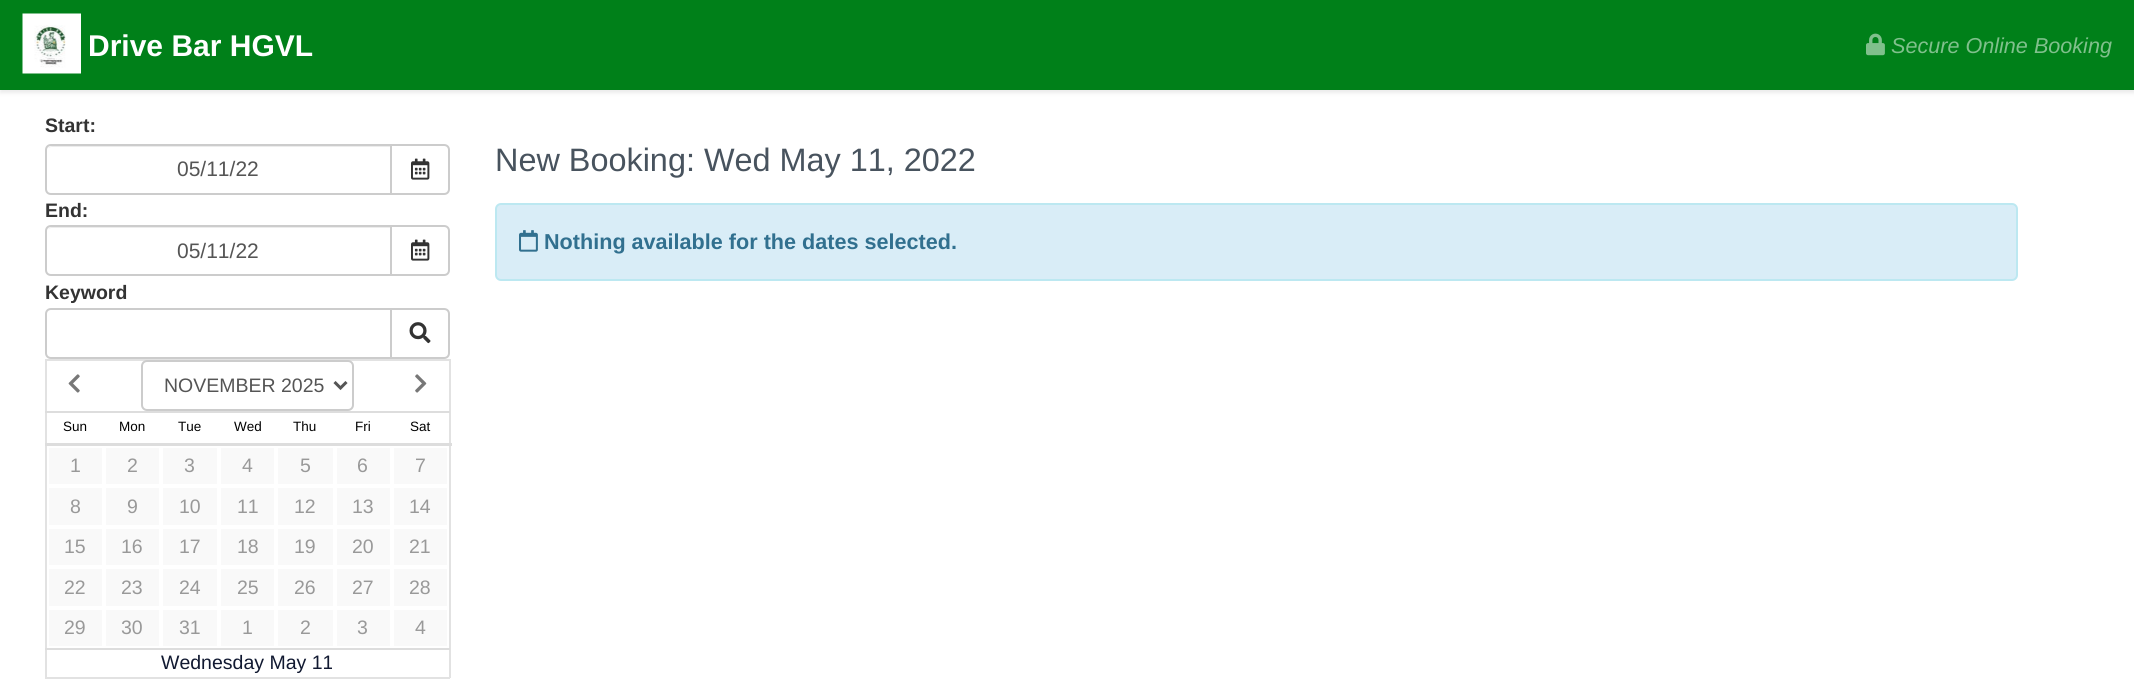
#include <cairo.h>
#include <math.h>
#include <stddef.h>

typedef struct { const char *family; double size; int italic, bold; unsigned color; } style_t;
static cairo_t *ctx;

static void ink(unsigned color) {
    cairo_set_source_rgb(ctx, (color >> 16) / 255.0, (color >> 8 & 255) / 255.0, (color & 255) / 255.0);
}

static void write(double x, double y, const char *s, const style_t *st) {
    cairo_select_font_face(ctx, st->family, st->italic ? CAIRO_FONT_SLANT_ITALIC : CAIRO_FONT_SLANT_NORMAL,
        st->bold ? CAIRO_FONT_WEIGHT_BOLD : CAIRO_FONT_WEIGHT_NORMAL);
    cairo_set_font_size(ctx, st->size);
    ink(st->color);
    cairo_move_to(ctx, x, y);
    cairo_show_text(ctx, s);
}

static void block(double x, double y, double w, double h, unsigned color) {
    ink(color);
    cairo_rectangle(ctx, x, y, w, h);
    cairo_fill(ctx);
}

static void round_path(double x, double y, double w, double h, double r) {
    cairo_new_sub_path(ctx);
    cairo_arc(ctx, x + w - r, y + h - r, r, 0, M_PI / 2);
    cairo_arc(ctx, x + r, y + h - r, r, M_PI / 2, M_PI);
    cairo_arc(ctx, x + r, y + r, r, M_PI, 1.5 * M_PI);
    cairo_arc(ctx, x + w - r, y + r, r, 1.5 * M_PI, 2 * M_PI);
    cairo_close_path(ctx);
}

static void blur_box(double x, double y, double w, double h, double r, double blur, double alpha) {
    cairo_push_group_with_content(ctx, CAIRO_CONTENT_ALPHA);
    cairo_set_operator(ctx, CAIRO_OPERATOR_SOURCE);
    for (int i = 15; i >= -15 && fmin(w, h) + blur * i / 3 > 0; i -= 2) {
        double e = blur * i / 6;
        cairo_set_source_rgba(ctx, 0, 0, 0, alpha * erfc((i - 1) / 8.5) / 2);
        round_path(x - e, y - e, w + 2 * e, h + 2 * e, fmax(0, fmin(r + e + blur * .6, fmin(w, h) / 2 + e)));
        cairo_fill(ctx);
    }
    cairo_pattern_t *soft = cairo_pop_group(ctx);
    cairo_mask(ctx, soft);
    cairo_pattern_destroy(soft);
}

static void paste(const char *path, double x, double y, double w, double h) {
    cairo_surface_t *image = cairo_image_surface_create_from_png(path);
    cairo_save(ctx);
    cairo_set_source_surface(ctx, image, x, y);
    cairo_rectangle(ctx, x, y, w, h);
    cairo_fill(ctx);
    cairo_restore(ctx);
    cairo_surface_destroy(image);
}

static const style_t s1 = {"Liberation Sans", 30, 0, 1, 0xffffff};
static const style_t s2 = {"Liberation Sans", 21.6, 1, 0, 0x80c08c};
static const style_t s3 = {"Liberation Sans", 19.5, 0, 1, 0x333333};
static const style_t s4 = {"Liberation Sans", 21, 0, 0, 0x555555};
static const style_t s5 = {"Liberation Sans", 19.5, 0, 0, 0x555555};
static const style_t s6 = {"Liberation Sans", 13.5, 0, 0, 0x000000};
static const style_t s7 = {"Liberation Sans", 19.5, 0, 0, 0x999999};
static const style_t s8 = {"Liberation Sans", 19.5, 0, 0, 0x111931};
static const style_t s9 = {"Liberation Sans", 32.4, 0, 0, 0x48535e};
static const style_t s10 = {"Liberation Sans", 21.6, 0, 1, 0x31708f};

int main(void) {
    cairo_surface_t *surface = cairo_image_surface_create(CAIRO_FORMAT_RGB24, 2134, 691);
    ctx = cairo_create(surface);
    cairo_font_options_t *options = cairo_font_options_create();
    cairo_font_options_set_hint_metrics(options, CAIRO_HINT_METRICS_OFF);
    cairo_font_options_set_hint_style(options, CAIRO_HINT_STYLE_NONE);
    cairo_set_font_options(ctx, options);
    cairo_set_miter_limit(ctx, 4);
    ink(0xffffff);
    cairo_paint(ctx);
    ink(0x323232);
    blur_box(0, 3, 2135, 90, 0, 2, 0.1);
    block(0, 0, 2134, 90, 0x008019);
    paste("pic1.png", 22, 13, 59, 61);
    write(88, 56, "Drive Bar HGVL", &s1);
    paste("pic2.png", 1866, 33, 19, 23);
    write(1891, 53, "Secure Online Booking", &s2);
    write(45, 132, "Start:", &s3);
    ink(0xececec);
    cairo_new_path(ctx);
    cairo_move_to(ctx, 51, 147);
    cairo_line_to(ctx, 390, 147);
    cairo_line_to(ctx, 390, 146);
    cairo_line_to(ctx, 52, 146);
    cairo_line_to(ctx, 49, 147);
    cairo_line_to(ctx, 48, 148);
    cairo_close_path(ctx);
    cairo_fill(ctx);
    cairo_new_path(ctx);
    cairo_move_to(ctx, 51, 145);
    cairo_line_to(ctx, 391, 145);
    cairo_line_to(ctx, 391, 194);
    cairo_line_to(ctx, 51, 194);
    cairo_curve_to(ctx, 48, 194, 46, 192, 46, 189);
    cairo_line_to(ctx, 46, 150);
    cairo_curve_to(ctx, 46, 147, 48, 145, 51, 145);
    cairo_close_path(ctx);
    ink(0xcccccc);
    cairo_stroke(ctx);
    write(177, 176, "05/11/22", &s4);
    ink(0xffffff);
    cairo_new_path(ctx);
    cairo_move_to(ctx, 391, 145);
    cairo_line_to(ctx, 444, 145);
    cairo_curve_to(ctx, 447, 145, 449, 147, 449, 150);
    cairo_line_to(ctx, 449, 189);
    cairo_curve_to(ctx, 449, 192, 447, 194, 444, 194);
    cairo_line_to(ctx, 391, 194);
    cairo_close_path(ctx);
    cairo_fill_preserve(ctx);
    ink(0xcccccc);
    cairo_stroke(ctx);
    paste("pic3.png", 411, 158, 19, 22);
    write(45, 217, "End:", &s3);
    ink(0xececec);
    cairo_new_path(ctx);
    cairo_move_to(ctx, 51, 228);
    cairo_line_to(ctx, 390, 228);
    cairo_line_to(ctx, 390, 227);
    cairo_line_to(ctx, 52, 227);
    cairo_curve_to(ctx, 50, 227, 49, 228, 48, 229);
    cairo_close_path(ctx);
    cairo_fill(ctx);
    cairo_new_path(ctx);
    cairo_move_to(ctx, 51, 226);
    cairo_line_to(ctx, 391, 226);
    cairo_line_to(ctx, 391, 275);
    cairo_line_to(ctx, 51, 275);
    cairo_curve_to(ctx, 48, 275, 46, 273, 46, 270);
    cairo_line_to(ctx, 46, 231);
    cairo_curve_to(ctx, 46, 228, 48, 226, 51, 226);
    cairo_close_path(ctx);
    ink(0xcccccc);
    cairo_stroke(ctx);
    write(177, 258, "05/11/22", &s4);
    ink(0xffffff);
    cairo_new_path(ctx);
    cairo_move_to(ctx, 391, 226);
    cairo_line_to(ctx, 444, 226);
    cairo_curve_to(ctx, 447, 226, 449, 228, 449, 231);
    cairo_line_to(ctx, 449, 270);
    cairo_curve_to(ctx, 449, 273, 447, 275, 444, 275);
    cairo_line_to(ctx, 391, 275);
    cairo_close_path(ctx);
    cairo_fill_preserve(ctx);
    ink(0xcccccc);
    cairo_stroke(ctx);
    paste("pic3.png", 411, 239, 19, 22);
    write(45, 299, "Keyword", &s3);
    cairo_new_path(ctx);
    cairo_move_to(ctx, 51, 309);
    cairo_line_to(ctx, 391, 309);
    cairo_line_to(ctx, 391, 358);
    cairo_line_to(ctx, 51, 358);
    cairo_curve_to(ctx, 48, 358, 46, 356, 46, 353);
    cairo_line_to(ctx, 46, 314);
    cairo_curve_to(ctx, 46, 311, 48, 309, 51, 309);
    cairo_close_path(ctx);
    ink(0xcccccc);
    cairo_stroke(ctx);
    ink(0xffffff);
    cairo_new_path(ctx);
    cairo_move_to(ctx, 391, 309);
    cairo_line_to(ctx, 444, 309);
    cairo_curve_to(ctx, 447, 309, 449, 311, 449, 314);
    cairo_line_to(ctx, 449, 353);
    cairo_curve_to(ctx, 449, 356, 447, 358, 444, 358);
    cairo_line_to(ctx, 391, 358);
    cairo_close_path(ctx);
    cairo_fill_preserve(ctx);
    ink(0xcccccc);
    cairo_stroke(ctx);
    paste("pic4.png", 409, 322, 22, 22);
    block(45, 359, 405, 2, 0xe2e2e2);
    block(449, 359, 2, 319, 0xe2e2e2);
    block(45, 677, 405, 2, 0xe2e2e2);
    block(45, 359, 2, 319, 0xe2e2e2);
    paste("pic5.png", 68, 374, 12, 19);
    ink(0xffffff);
    round_path(142, 361, 211, 49, 5);
    cairo_fill_preserve(ctx);
    ink(0xcccccc);
    cairo_stroke(ctx);
    cairo_new_path(ctx);
    cairo_move_to(ctx, 334.5, 382);
    cairo_line_to(ctx, 340.5, 388);
    cairo_line_to(ctx, 346.5, 382);
    ink(0x555555);
    cairo_set_line_width(ctx, 3);
    cairo_stroke(ctx);
    write(164, 392, "NOVEMBER 2025", &s5);
    paste("pic6.png", 415, 374, 12, 19);
    write(63, 431, "Sun", &s6);
    write(119, 431, "Mon", &s6);
    write(178, 431, "Tue", &s6);
    write(234, 431, "Wed", &s6);
    write(293, 431, "Thu", &s6);
    write(355, 431, "Fri", &s6);
    block(45, 411, 405, 2, 0xdddddd);
    block(45, 443, 407, 3, 0xdddddd);
    write(410, 431, "Sat", &s6);
    block(49, 448, 53, 36, 0xf9f9f9);
    write(70, 472, "1", &s7);
    block(106, 448, 53, 36, 0xf9f9f9);
    write(127, 472, "2", &s7);
    block(163, 448, 54, 36, 0xf9f9f9);
    write(184, 472, "3", &s7);
    block(221, 448, 53, 36, 0xf9f9f9);
    write(242, 472, "4", &s7);
    block(278, 448, 55, 36, 0xf9f9f9);
    write(300, 472, "5", &s7);
    block(337, 448, 53, 36, 0xf9f9f9);
    write(357, 472, "6", &s7);
    block(394, 448, 53, 36, 0xf9f9f9);
    write(415, 472, "7", &s7);
    block(49, 488, 53, 37, 0xf9f9f9);
    write(70, 513, "8", &s7);
    block(106, 488, 53, 37, 0xf9f9f9);
    write(127, 513, "9", &s7);
    block(163, 488, 54, 37, 0xf9f9f9);
    write(179, 513, "10", &s7);
    block(221, 488, 53, 37, 0xf9f9f9);
    write(237, 513, "11", &s7);
    block(278, 488, 55, 37, 0xf9f9f9);
    write(294, 513, "12", &s7);
    block(337, 488, 53, 37, 0xf9f9f9);
    write(352, 513, "13", &s7);
    block(394, 488, 53, 37, 0xf9f9f9);
    write(409, 513, "14", &s7);
    block(49, 529, 53, 36, 0xf9f9f9);
    write(64, 553, "15", &s7);
    block(106, 529, 53, 36, 0xf9f9f9);
    write(121, 553, "16", &s7);
    block(163, 529, 54, 36, 0xf9f9f9);
    write(179, 553, "17", &s7);
    block(221, 529, 53, 36, 0xf9f9f9);
    write(237, 553, "18", &s7);
    block(278, 529, 55, 36, 0xf9f9f9);
    write(294, 553, "19", &s7);
    block(337, 529, 53, 36, 0xf9f9f9);
    write(352, 553, "20", &s7);
    block(394, 529, 53, 36, 0xf9f9f9);
    write(409, 553, "21", &s7);
    block(49, 569, 53, 37, 0xf9f9f9);
    write(64, 594, "22", &s7);
    block(106, 569, 53, 37, 0xf9f9f9);
    write(121, 594, "23", &s7);
    block(163, 569, 54, 37, 0xf9f9f9);
    write(179, 594, "24", &s7);
    block(221, 569, 53, 37, 0xf9f9f9);
    write(237, 594, "25", &s7);
    block(278, 569, 55, 37, 0xf9f9f9);
    write(294, 594, "26", &s7);
    block(337, 569, 53, 37, 0xf9f9f9);
    write(352, 594, "27", &s7);
    block(394, 569, 53, 37, 0xf9f9f9);
    write(409, 594, "28", &s7);
    block(49, 610, 53, 36, 0xf9f9f9);
    write(64, 634, "29", &s7);
    block(106, 610, 53, 36, 0xf9f9f9);
    write(121, 634, "30", &s7);
    block(163, 610, 54, 36, 0xf9f9f9);
    write(179, 634, "31", &s7);
    block(221, 610, 53, 36, 0xf9f9f9);
    write(242, 634, "1", &s7);
    block(278, 610, 55, 36, 0xf9f9f9);
    write(300, 634, "2", &s7);
    block(337, 610, 53, 36, 0xf9f9f9);
    write(357, 634, "3", &s7);
    block(394, 610, 53, 36, 0xf9f9f9);
    write(415, 634, "4", &s7);
    block(45, 648, 405, 2, 0xdddddd);
    write(161, 669, "Wednesday May 11", &s8);
    write(495, 171, "New Booking: Wed May 11, 2022", &s9);
    ink(0xd9edf7);
    round_path(496, 204, 1521, 76, 5);
    cairo_fill_preserve(ctx);
    ink(0xbce8f1);
    cairo_set_line_width(ctx, 2);
    cairo_stroke(ctx);
    paste("pic7.png", 519, 230, 19, 22);
    write(544, 249, "Nothing available for the dates selected.", &s10);
    cairo_surface_write_to_png(surface, "screenshot.png");
    cairo_font_options_destroy(options);
    cairo_destroy(ctx);
    cairo_surface_destroy(surface);
    return 0;
}
